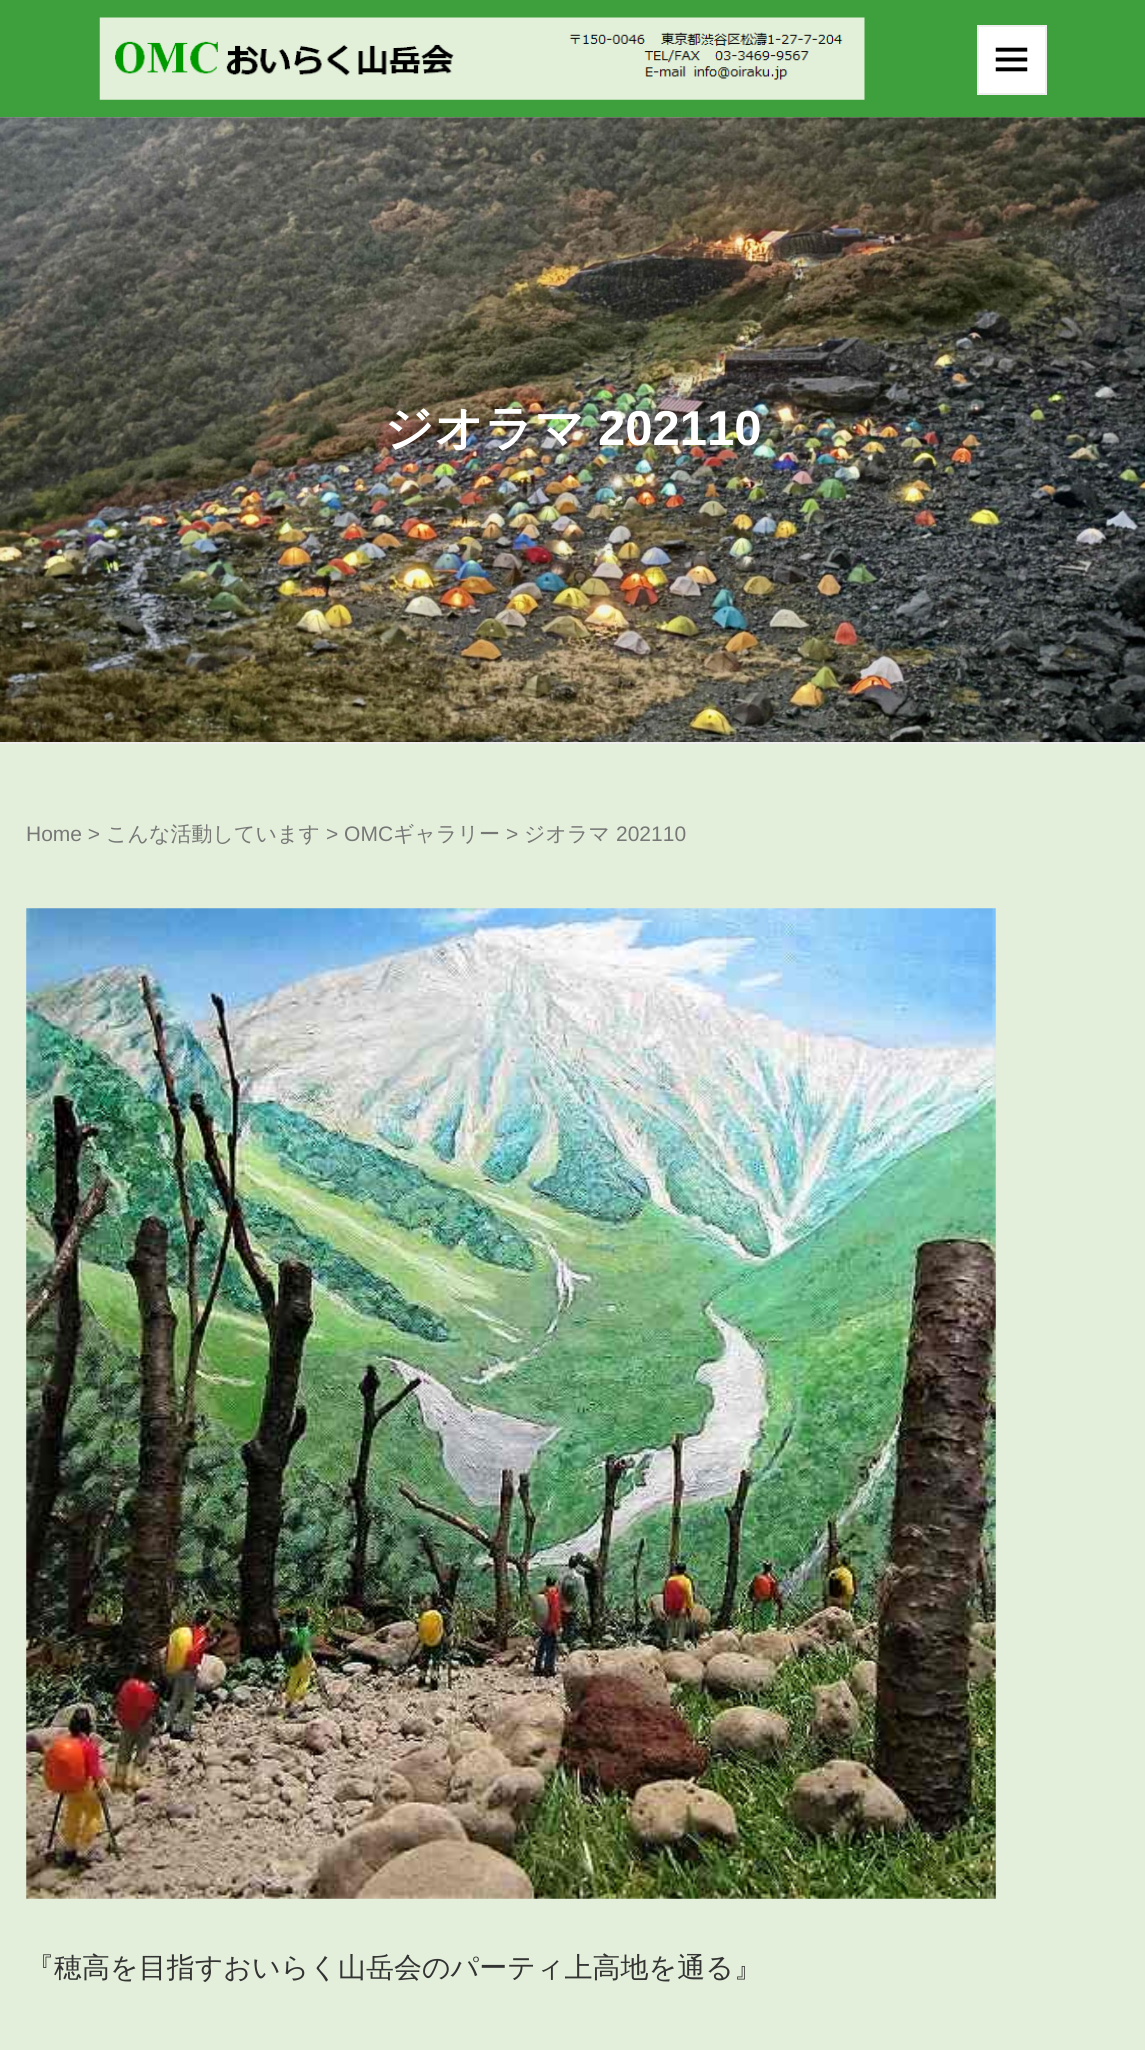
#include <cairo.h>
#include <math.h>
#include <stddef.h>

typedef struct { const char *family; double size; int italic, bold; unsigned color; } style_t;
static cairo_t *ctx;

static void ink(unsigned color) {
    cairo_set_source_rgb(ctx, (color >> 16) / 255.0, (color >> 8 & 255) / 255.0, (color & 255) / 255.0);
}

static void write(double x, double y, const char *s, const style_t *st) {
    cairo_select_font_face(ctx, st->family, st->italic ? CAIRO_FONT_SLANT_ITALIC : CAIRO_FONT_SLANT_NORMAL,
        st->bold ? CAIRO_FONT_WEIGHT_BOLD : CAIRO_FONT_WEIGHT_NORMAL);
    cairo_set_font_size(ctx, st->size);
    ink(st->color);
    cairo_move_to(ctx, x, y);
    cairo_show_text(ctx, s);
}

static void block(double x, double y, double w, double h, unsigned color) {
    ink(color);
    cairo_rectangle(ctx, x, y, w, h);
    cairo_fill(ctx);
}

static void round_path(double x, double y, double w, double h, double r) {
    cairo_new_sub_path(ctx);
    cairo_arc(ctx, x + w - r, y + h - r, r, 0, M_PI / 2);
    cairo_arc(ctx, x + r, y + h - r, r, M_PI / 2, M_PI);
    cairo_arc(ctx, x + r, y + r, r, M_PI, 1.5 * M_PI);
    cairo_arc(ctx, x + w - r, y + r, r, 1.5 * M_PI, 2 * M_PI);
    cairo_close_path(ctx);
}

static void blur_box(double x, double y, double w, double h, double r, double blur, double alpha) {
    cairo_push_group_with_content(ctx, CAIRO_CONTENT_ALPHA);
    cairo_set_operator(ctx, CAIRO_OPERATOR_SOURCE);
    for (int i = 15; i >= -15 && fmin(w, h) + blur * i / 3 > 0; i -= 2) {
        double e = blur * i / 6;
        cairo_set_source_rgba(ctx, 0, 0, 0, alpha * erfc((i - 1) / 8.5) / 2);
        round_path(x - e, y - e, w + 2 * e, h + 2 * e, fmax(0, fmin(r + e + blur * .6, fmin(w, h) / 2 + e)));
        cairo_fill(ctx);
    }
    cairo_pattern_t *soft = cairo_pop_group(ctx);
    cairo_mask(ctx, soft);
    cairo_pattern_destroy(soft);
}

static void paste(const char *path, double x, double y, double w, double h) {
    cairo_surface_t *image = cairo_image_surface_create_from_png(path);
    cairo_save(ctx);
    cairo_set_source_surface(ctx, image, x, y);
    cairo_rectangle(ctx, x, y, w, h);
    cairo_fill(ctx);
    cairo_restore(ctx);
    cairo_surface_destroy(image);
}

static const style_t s1 = {"WenQuanYi Zen Hei", 49, 0, 1, 0xffffff};
static const style_t s2 = {"Liberation Sans", 49, 0, 1, 0xffffff};
static const style_t s3 = {"Liberation Sans", 21, 0, 0, 0x777777};
static const style_t s4 = {"WenQuanYi Zen Hei Medium", 21, 0, 0, 0x777777};
static const style_t s5 = {"WenQuanYi Zen Hei Medium", 28, 0, 0, 0x333333};

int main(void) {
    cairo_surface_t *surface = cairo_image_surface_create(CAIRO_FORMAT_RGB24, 1145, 2050);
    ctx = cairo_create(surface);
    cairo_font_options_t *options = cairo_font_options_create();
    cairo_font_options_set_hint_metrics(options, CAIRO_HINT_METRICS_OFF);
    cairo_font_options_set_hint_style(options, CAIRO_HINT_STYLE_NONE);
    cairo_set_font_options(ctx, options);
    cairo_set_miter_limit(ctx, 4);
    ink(0xe3efda);
    cairo_paint(ctx);
    paste("pic3.png", 0, 117, 1145, 625);
    ink(0x000000);
    blur_box(0, 0, 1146, 117, 0, 2.5, 0.2);
    block(0, 0, 1145, 117, 0x3ea03d);
    paste("pic1.png", 99, 17, 766, 83);
    ink(0xffffff);
    cairo_rectangle(ctx, 978, 26, 68, 68);
    cairo_fill_preserve(ctx);
    ink(0xeeeeee);
    cairo_stroke(ctx);
    paste("pic2.png", 995, 47, 33, 25);
    block(0, 742, 1145, 2, 0xeeeeee);
    write(384, 445, "ジオラマ", &s1);
    write(598, 445, "202110", &s2);
    write(26, 841, "Home >", &s3);
    write(106, 841, "こんな活動しています", &s4);
    write(326, 841, "> OMC", &s3);
    write(393, 841, "ギャラリー", &s4);
    write(506, 841, ">", &s3);
    write(524, 841, "ジオラマ", &s4);
    write(616, 841, "202110", &s3);
    paste("pic4.png", 26, 908, 970, 991);
    write(26, 1977, "『穂高を目指すおいらく山岳会のパーティ上高地を通る』", &s5);
    cairo_surface_write_to_png(surface, "screenshot.png");
    cairo_font_options_destroy(options);
    cairo_destroy(ctx);
    cairo_surface_destroy(surface);
    return 0;
}
